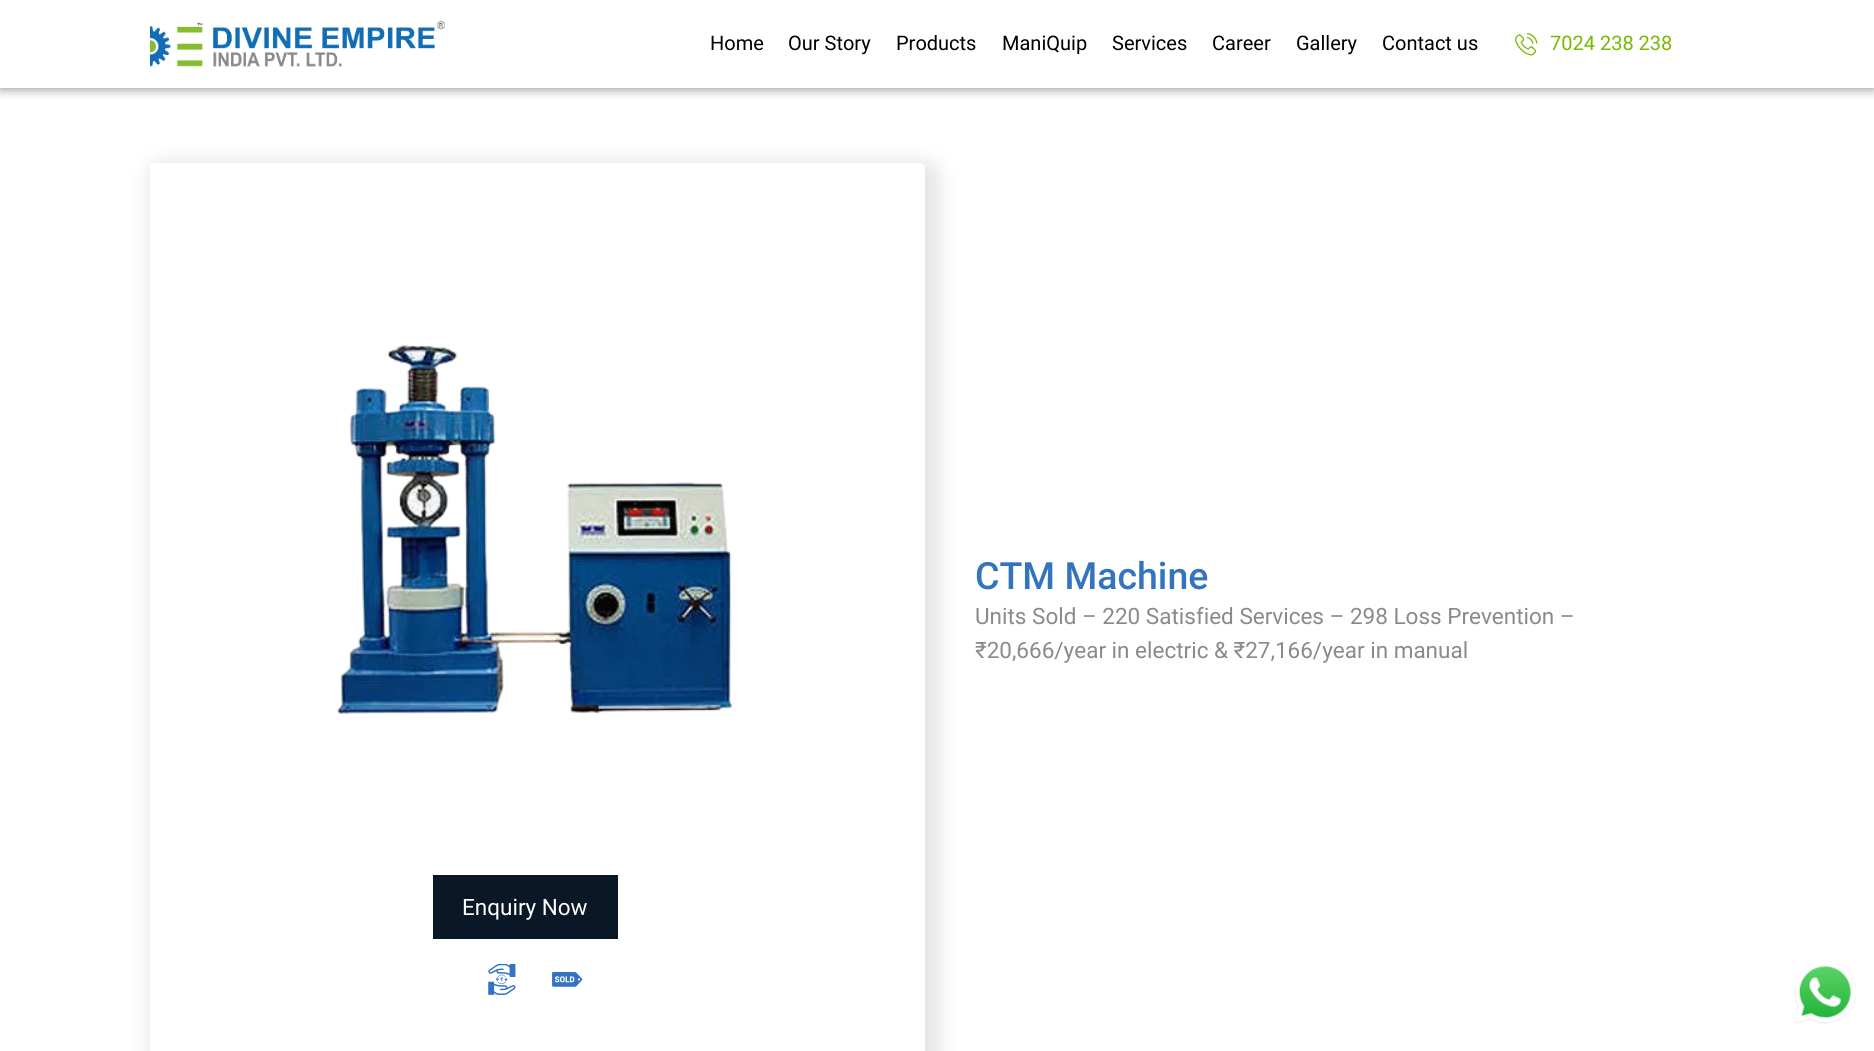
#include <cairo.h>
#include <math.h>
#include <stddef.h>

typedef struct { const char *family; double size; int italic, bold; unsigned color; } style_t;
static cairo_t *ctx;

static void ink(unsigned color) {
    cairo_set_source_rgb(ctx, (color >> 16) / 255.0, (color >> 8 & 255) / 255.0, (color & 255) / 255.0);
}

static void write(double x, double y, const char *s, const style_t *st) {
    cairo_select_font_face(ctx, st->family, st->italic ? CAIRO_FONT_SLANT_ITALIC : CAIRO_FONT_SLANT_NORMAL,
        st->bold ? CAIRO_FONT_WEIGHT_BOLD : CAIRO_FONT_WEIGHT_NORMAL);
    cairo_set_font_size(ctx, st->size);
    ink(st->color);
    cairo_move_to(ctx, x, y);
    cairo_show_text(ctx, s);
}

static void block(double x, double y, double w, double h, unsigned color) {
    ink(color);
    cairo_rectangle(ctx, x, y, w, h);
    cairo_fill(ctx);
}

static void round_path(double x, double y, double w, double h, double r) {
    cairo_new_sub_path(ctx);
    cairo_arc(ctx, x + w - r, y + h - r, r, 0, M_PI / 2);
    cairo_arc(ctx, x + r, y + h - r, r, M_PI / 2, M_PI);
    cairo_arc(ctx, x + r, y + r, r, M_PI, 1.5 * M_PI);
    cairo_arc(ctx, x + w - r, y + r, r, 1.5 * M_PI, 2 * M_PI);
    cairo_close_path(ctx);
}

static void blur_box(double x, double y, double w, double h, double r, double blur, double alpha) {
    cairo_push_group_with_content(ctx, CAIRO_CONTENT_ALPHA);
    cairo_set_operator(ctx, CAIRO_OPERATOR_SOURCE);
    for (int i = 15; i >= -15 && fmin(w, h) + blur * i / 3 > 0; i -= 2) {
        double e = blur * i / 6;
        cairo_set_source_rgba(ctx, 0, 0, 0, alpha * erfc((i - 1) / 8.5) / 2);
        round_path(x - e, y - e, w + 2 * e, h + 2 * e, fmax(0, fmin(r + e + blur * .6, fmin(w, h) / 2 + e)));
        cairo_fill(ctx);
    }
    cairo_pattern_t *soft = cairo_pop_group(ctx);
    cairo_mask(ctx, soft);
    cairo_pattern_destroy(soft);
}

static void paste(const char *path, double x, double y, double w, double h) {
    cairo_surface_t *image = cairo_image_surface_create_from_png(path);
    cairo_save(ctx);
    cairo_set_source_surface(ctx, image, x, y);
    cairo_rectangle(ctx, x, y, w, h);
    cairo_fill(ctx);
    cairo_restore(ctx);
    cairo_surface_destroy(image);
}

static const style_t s1 = {"Roboto", 20, 0, 0, 0x000000};
static const style_t s2 = {"Roboto", 20, 0, 0, 0x78b800};
static const style_t s3 = {"Roboto Medium", 37.5, 0, 0, 0x3274c0};
static const style_t s4 = {"Roboto", 22.5, 0, 0, 0x8a8a8a};
static const style_t s5 = {"Roboto", 22.5, 0, 0, 0xffffff};

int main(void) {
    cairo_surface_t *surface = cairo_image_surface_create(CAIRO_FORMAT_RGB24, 1874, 1051);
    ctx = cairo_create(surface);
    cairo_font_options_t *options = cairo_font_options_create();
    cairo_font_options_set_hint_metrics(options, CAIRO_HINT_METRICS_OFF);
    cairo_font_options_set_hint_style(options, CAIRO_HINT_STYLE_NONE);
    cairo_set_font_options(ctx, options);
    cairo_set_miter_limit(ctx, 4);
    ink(0xffffff);
    cairo_paint(ctx);
    ink(0x000000);
    blur_box(0, 0, 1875, 88, 0, 6, 0.5);
    block(0, 0, 1874, 88, 0xffffff);
    paste("pic1.png", 150, 20, 295, 47);
    write(710, 50, "Home", &s1);
    write(788, 50, "Our Story", &s1);
    write(896, 50, "Products", &s1);
    write(1002, 50, "ManiQuip", &s1);
    write(1112, 50, "Services", &s1);
    write(1212, 50, "Career", &s1);
    write(1296, 50, "Gallery", &s1);
    write(1382, 50, "Contact us", &s1);
    paste("pic2.png", 1515, 33, 23, 23);
    write(1550, 50, "7024 238 238", &s2);
    write(975, 589, "CTM Machine", &s3);
    write(975, 624, "Units Sold – 220 Satisfied Services – 298 Loss Prevention –", &s4);
    write(975, 658, "₹20,666/year in electric & ₹27,166/year in manual", &s4);
    cairo_save(ctx);
    cairo_set_fill_rule(ctx, CAIRO_FILL_RULE_EVEN_ODD);
    cairo_new_path(ctx);
    cairo_move_to(ctx, 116, 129);
    cairo_line_to(ctx, 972, 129);
    cairo_line_to(ctx, 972, 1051);
    cairo_line_to(ctx, 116, 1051);
    cairo_close_path(ctx);
    cairo_move_to(ctx, 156, 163);
    cairo_line_to(ctx, 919, 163);
    cairo_curve_to(ctx, 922.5, 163, 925, 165.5, 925, 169);
    cairo_line_to(ctx, 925, 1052);
    cairo_curve_to(ctx, 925, 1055.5, 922.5, 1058, 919, 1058);
    cairo_line_to(ctx, 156, 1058);
    cairo_curve_to(ctx, 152.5, 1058, 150, 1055.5, 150, 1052);
    cairo_line_to(ctx, 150, 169);
    cairo_curve_to(ctx, 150, 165.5, 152.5, 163, 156, 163);
    cairo_close_path(ctx);
    cairo_clip(ctx);
    ink(0x000000);
    blur_box(150, 163, 788, 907, 13, 11, 0.12);
    cairo_restore(ctx);
    paste("pic3.png", 337, 344, 396, 370);
    block(433, 875, 185, 64, 0x0a1726);
    write(462, 915, "Enquiry Now", &s5);
    paste("pic4.png", 488, 964, 28, 31);
    paste("pic5.png", 552, 972, 31, 15);
    paste("pic6.png", 1793, 961, 63, 63);
    cairo_surface_write_to_png(surface, "screenshot.png");
    cairo_font_options_destroy(options);
    cairo_destroy(ctx);
    cairo_surface_destroy(surface);
    return 0;
}
